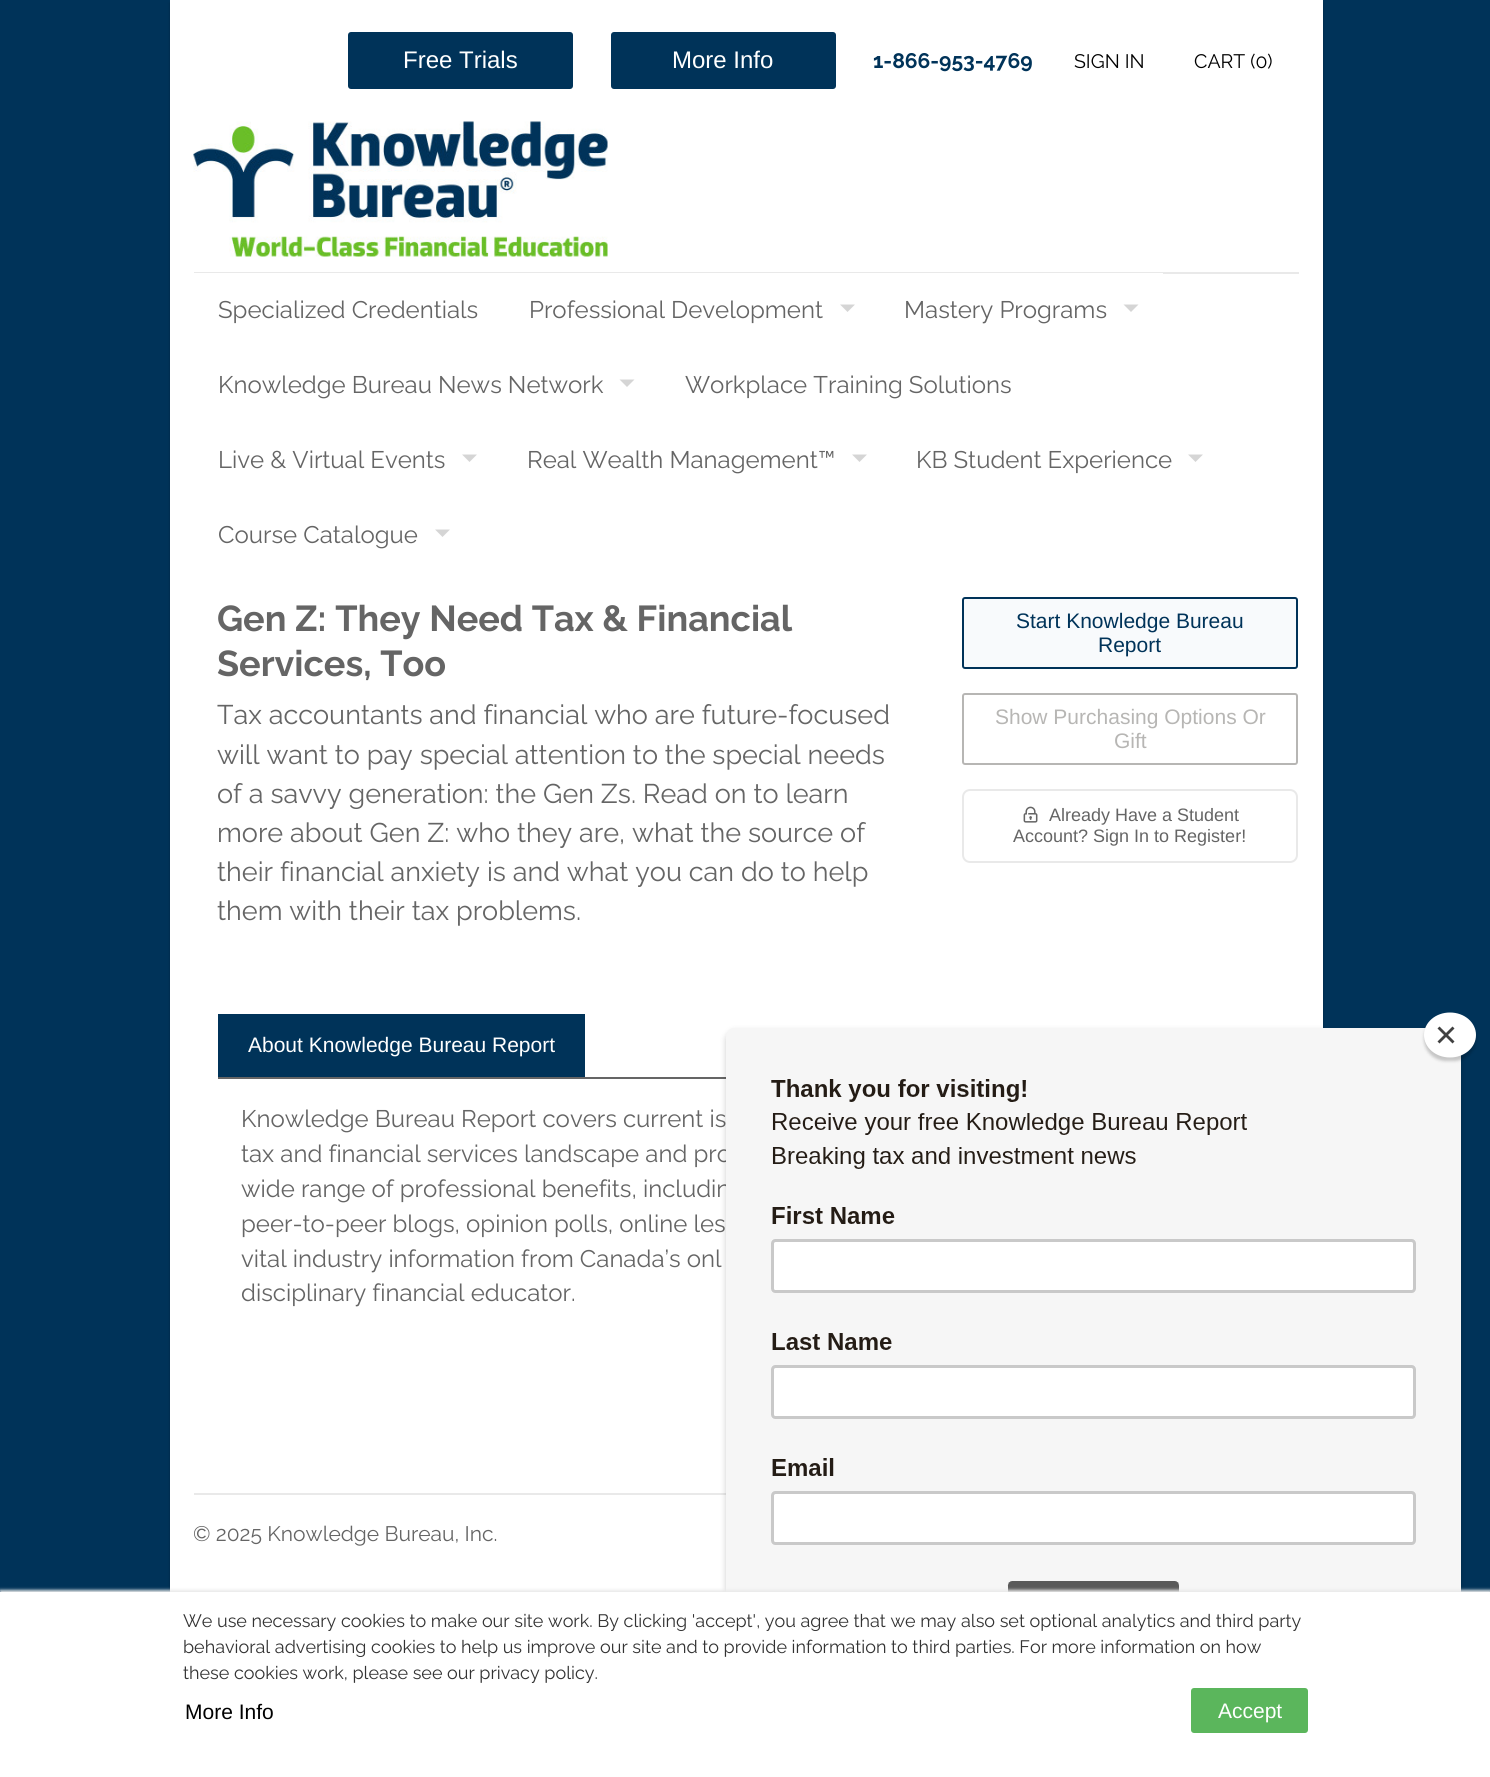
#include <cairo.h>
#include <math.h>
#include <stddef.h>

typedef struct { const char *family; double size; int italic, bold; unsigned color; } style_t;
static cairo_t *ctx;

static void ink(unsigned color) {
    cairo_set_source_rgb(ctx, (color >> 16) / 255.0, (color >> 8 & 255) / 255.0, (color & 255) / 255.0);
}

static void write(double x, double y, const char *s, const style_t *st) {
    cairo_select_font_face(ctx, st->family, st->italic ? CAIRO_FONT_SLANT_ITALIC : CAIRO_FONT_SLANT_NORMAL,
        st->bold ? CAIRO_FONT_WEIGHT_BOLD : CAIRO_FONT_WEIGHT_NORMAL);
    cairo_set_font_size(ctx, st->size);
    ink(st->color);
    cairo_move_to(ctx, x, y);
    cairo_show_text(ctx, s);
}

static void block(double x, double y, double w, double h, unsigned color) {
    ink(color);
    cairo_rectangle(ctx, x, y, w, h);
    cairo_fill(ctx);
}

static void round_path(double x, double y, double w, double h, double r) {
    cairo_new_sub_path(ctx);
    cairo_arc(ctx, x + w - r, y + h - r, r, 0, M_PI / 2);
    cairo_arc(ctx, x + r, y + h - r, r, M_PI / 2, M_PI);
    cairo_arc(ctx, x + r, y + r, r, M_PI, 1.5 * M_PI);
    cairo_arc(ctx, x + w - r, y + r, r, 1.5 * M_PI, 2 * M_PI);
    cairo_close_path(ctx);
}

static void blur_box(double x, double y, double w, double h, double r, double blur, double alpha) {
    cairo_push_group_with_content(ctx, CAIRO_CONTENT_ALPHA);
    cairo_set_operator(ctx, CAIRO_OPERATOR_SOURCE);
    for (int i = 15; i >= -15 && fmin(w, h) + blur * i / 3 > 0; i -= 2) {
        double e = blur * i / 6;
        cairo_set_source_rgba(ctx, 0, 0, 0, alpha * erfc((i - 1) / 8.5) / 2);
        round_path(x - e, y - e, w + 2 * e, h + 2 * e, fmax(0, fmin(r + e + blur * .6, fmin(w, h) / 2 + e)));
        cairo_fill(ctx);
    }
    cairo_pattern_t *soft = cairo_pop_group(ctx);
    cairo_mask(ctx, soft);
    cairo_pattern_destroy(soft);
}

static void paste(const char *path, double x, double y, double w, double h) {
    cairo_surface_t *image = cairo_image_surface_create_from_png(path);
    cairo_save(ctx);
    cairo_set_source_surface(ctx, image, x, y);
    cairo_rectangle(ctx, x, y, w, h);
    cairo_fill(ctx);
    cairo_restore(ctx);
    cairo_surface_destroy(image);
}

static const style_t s1 = {"Liberation Sans", 24, 0, 0, 0xffffff};
static const style_t s2 = {"Raleway", 21, 0, 1, 0x003359};
static const style_t s3 = {"Raleway", 19.5, 0, 0, 0x000000};
static const style_t s4 = {"Raleway", 24, 0, 0, 0x656565};
static const style_t s5 = {"Raleway", 36, 0, 1, 0x656565};
static const style_t s6 = {"Raleway", 27, 0, 0, 0x656565};
static const style_t s7 = {"Liberation Sans", 21, 0, 0, 0xffffff};
static const style_t s8 = {"Liberation Sans", 21, 0, 0, 0x003359};
static const style_t s9 = {"Liberation Sans", 21, 0, 0, 0xb7b6b4};
static const style_t s10 = {"Liberation Sans", 18, 0, 0, 0x656565};
static const style_t s11 = {"Raleway", 21, 0, 0, 0x656565};
static const style_t s12 = {"Raleway", 18, 0, 0, 0x333333};
static const style_t s13 = {"Liberation Sans", 21, 0, 0, 0x000000};

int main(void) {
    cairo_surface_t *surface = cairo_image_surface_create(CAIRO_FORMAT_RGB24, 1490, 1777);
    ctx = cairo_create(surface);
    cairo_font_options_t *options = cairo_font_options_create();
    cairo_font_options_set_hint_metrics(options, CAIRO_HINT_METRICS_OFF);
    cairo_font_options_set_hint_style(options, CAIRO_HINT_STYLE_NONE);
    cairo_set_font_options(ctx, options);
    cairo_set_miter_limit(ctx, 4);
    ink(0x003359);
    cairo_paint(ctx);
    ink(0x000000);
    blur_box(176, 3, 1147, 1592, 0, 1.5, 0.25);
    blur_box(170, 3, 1147, 1592, 0, 1.5, 0.25);
    block(170, 0, 1153, 1592, 0xffffff);
    ink(0x003359);
    round_path(349, 33, 223, 55, 2);
    cairo_fill_preserve(ctx);
    cairo_stroke(ctx);
    write(403, 68, "Free Trials", &s1);
    ink(0x003359);
    round_path(612, 33, 223, 55, 2);
    cairo_fill_preserve(ctx);
    cairo_stroke(ctx);
    write(672, 68, "More Info", &s1);
    write(873, 68, "1-866-953-4769", &s2);
    write(1074, 68, "SIGN IN", &s3);
    write(1194, 68, "CART (0)", &s3);
    paste("pic1.png", 193, 121, 415, 136);
    block(194, 272, 1105, 2, 0xe9e9e9);
    block(194, 273, 969, 1, 0xffffff);
    write(218, 318, "Specialized Credentials", &s4);
    write(529, 318, "Professional Development", &s4);
    ink(0xd5d5d5);
    cairo_new_path(ctx);
    cairo_move_to(ctx, 840, 304.5);
    cairo_line_to(ctx, 855, 304.5);
    cairo_line_to(ctx, 847.5, 312);
    cairo_close_path(ctx);
    cairo_fill(ctx);
    write(904, 318, "Mastery Programs", &s4);
    ink(0xd5d5d5);
    cairo_new_path(ctx);
    cairo_move_to(ctx, 1123.5, 304.5);
    cairo_line_to(ctx, 1138.5, 304.5);
    cairo_line_to(ctx, 1131, 312);
    cairo_close_path(ctx);
    cairo_fill(ctx);
    write(218, 393, "Knowledge Bureau News Network", &s4);
    ink(0xd5d5d5);
    cairo_new_path(ctx);
    cairo_move_to(ctx, 619.5, 379.5);
    cairo_line_to(ctx, 634.5, 379.5);
    cairo_line_to(ctx, 627, 387);
    cairo_close_path(ctx);
    cairo_fill(ctx);
    write(685, 393, "Workplace Training Solutions", &s4);
    write(218, 468, "Live & Virtual Events", &s4);
    ink(0xd5d5d5);
    cairo_new_path(ctx);
    cairo_move_to(ctx, 462, 454.5);
    cairo_line_to(ctx, 477, 454.5);
    cairo_line_to(ctx, 469.5, 462);
    cairo_close_path(ctx);
    cairo_fill(ctx);
    write(527, 468, "Real Wealth Management™", &s4);
    ink(0xd5d5d5);
    cairo_new_path(ctx);
    cairo_move_to(ctx, 852, 454.5);
    cairo_line_to(ctx, 867, 454.5);
    cairo_line_to(ctx, 859.5, 462);
    cairo_close_path(ctx);
    cairo_fill(ctx);
    write(916, 468, "KB Student Experience", &s4);
    ink(0xd5d5d5);
    cairo_new_path(ctx);
    cairo_move_to(ctx, 1188, 454.5);
    cairo_line_to(ctx, 1203, 454.5);
    cairo_line_to(ctx, 1195.5, 462);
    cairo_close_path(ctx);
    cairo_fill(ctx);
    write(218, 543, "Course Catalogue", &s4);
    ink(0xd5d5d5);
    cairo_new_path(ctx);
    cairo_move_to(ctx, 435, 529.5);
    cairo_line_to(ctx, 450, 529.5);
    cairo_line_to(ctx, 442.5, 537);
    cairo_close_path(ctx);
    cairo_fill(ctx);
    write(217, 631, "Gen Z: They Need Tax & Financial", &s5);
    write(217, 676, "Services, Too", &s5);
    write(217, 724, "Tax accountants and financial who are future-focused", &s6);
    write(217, 764, "will want to pay special attention to the special needs", &s6);
    write(217, 803, "of a savvy generation: the Gen Zs. Read on to learn", &s6);
    write(217, 842, "more about Gen Z: who they are, what the source of", &s6);
    write(217, 881, "their financial anxiety is and what you can do to help", &s6);
    write(217, 920, "them with their tax problems.", &s6);
    block(218, 1077, 508, 2, 0x656565);
    block(218, 1014, 367, 63, 0x003359);
    write(248, 1052, "About Knowledge Bureau Report", &s7);
    write(241, 1127, "Knowledge Bureau Report covers current is", &s4);
    write(241, 1162, "tax and financial services landscape and pro", &s4);
    write(241, 1197, "wide range of professional benefits, includin", &s4);
    write(241, 1232, "peer-to-peer blogs, opinion polls, online les", &s4);
    write(241, 1267, "vital industry information from Canada’s onl", &s4);
    write(241, 1301, "disciplinary financial educator.", &s4);
    ink(0xf8fafc);
    round_path(963, 598, 334, 70, 2);
    cairo_fill_preserve(ctx);
    ink(0x003359);
    cairo_stroke(ctx);
    write(1016, 628, "Start Knowledge Bureau", &s8);
    write(1098, 652, "Report", &s8);
    round_path(963, 694, 334, 70, 2);
    ink(0xb7b6b4);
    cairo_stroke(ctx);
    write(995, 724, "Show Purchasing Options Or", &s9);
    write(1114, 748, "Gift", &s9);
    round_path(963, 790, 334, 72, 7);
    ink(0xe9e9e9);
    cairo_stroke(ctx);
    paste("pic2.png", 1023, 806, 15, 17);
    write(1049, 821, "Already Have a Student", &s10);
    write(1013, 842, "Account? Sign In to Register!", &s10);
    block(194, 1493, 532, 2, 0xe9e9e9);
    write(193, 1541, "© 2025 Knowledge Bureau, Inc.", &s11);
    ink(0x000000);
    blur_box(726, 1031, 735, 720, 9, 3, 0.2);
    paste("pic3.png", 726, 1028, 735, 564);
    ink(0xe9e9e9);
    blur_box(0, 1590, 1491, 186, 0, 1.5, 1);
    block(0, 1592, 1490, 185, 0xffffff);
    write(183, 1627, "We use necessary cookies to make our site work. By clicking 'accept', you agree that we may also set optional analytics and third party", &s12);
    write(183, 1653, "behavioral advertising cookies to help us improve our site and to provide information to third parties. For more information on how", &s12);
    write(183, 1679, "these cookies work, please see our privacy policy.", &s12);
    write(185, 1719, "More Info", &s13);
    ink(0x5bb65c);
    round_path(1191, 1688, 117, 45, 3);
    cairo_fill(ctx);
    write(1218, 1718, "Accept", &s7);
    ink(0x000000);
    blur_box(1424, 1016, 52, 45, 22.5, 1.5, 0.2);
    ink(0xffffff);
    cairo_new_path(ctx);
    cairo_move_to(ctx, 1450, 1012.5);
    cairo_curve_to(ctx, 1464.5, 1012.5, 1476, 1022.5, 1476, 1035);
    cairo_curve_to(ctx, 1476, 1047.5, 1464.5, 1057.5, 1450, 1057.5);
    cairo_curve_to(ctx, 1435.5, 1057.5, 1424, 1047.5, 1424, 1035);
    cairo_curve_to(ctx, 1424, 1022.5, 1435.5, 1012.5, 1450, 1012.5);
    cairo_close_path(ctx);
    cairo_fill(ctx);
    ink(0x414141);
    cairo_new_path(ctx);
    cairo_move_to(ctx, 1452.5, 1026.5);
    cairo_line_to(ctx, 1454.5, 1028.5);
    cairo_line_to(ctx, 1439.5, 1043.5);
    cairo_line_to(ctx, 1437.5, 1041.5);
    cairo_close_path(ctx);
    cairo_fill(ctx);
    cairo_new_path(ctx);
    cairo_move_to(ctx, 1437.5, 1028.5);
    cairo_line_to(ctx, 1439.5, 1026.5);
    cairo_line_to(ctx, 1454.5, 1041.5);
    cairo_line_to(ctx, 1452.5, 1043.5);
    cairo_close_path(ctx);
    cairo_fill(ctx);
    cairo_surface_write_to_png(surface, "screenshot.png");
    cairo_font_options_destroy(options);
    cairo_destroy(ctx);
    cairo_surface_destroy(surface);
    return 0;
}
